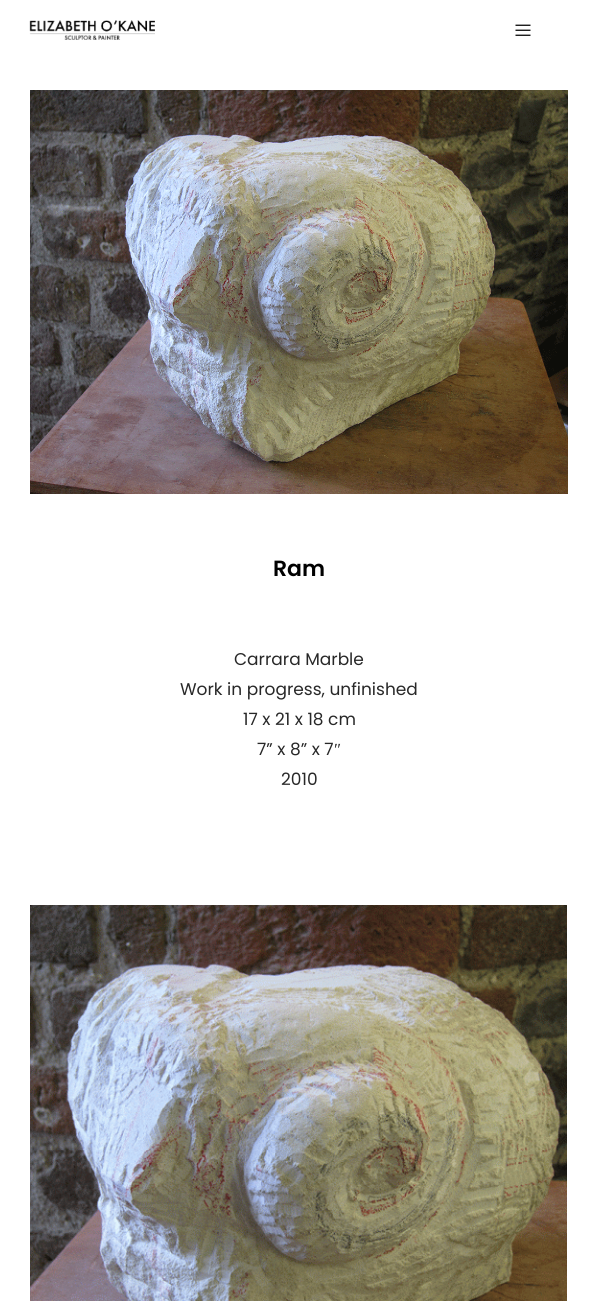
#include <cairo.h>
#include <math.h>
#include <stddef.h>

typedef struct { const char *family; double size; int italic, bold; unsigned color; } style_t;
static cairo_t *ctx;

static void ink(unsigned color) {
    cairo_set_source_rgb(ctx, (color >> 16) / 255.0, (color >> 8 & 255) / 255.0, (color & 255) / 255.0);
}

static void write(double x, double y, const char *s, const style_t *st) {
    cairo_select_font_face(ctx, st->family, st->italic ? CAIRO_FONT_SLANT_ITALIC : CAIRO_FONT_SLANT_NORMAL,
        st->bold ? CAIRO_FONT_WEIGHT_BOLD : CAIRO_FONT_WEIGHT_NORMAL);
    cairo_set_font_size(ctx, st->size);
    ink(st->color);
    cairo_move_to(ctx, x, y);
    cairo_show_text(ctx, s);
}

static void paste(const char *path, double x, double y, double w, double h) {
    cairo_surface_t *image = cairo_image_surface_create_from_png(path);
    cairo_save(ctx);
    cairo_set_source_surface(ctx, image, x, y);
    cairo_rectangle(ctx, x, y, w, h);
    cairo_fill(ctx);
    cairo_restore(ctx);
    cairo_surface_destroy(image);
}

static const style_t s1 = {"Poppins SemiBold", 22, 0, 0, 0x000000};
static const style_t s2 = {"Poppins", 17, 0, 0, 0x282828};
static const style_t s3 = {"Liberation Serif", 17, 0, 0, 0x282828};

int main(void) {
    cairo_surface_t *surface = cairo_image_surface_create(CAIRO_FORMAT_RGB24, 598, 1301);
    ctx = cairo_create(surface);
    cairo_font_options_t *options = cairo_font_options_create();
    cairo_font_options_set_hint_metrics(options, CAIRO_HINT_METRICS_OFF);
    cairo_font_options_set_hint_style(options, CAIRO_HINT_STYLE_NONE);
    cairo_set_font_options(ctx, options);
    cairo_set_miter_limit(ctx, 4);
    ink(0xffffff);
    cairo_paint(ctx);
    paste("pic1.png", 29, 20, 126, 20);
    paste("pic2.png", 515, 24, 16, 12);
    paste("pic3.png", 30, 90, 538, 404);
    write(273, 576, "Ram", &s1);
    write(234, 665, "Carrara Marble", &s2);
    write(180, 695, "Work in progress, unfinished", &s2);
    write(243, 725, "17 x 21 x 18 cm", &s2);
    write(257, 755, "7” x 8” x 7", &s2);
    write(334, 755, "″", &s3);
    write(281, 785, "2010", &s2);
    paste("pic4.png", 30, 905, 537, 396);
    cairo_surface_write_to_png(surface, "screenshot.png");
    cairo_font_options_destroy(options);
    cairo_destroy(ctx);
    cairo_surface_destroy(surface);
    return 0;
}
